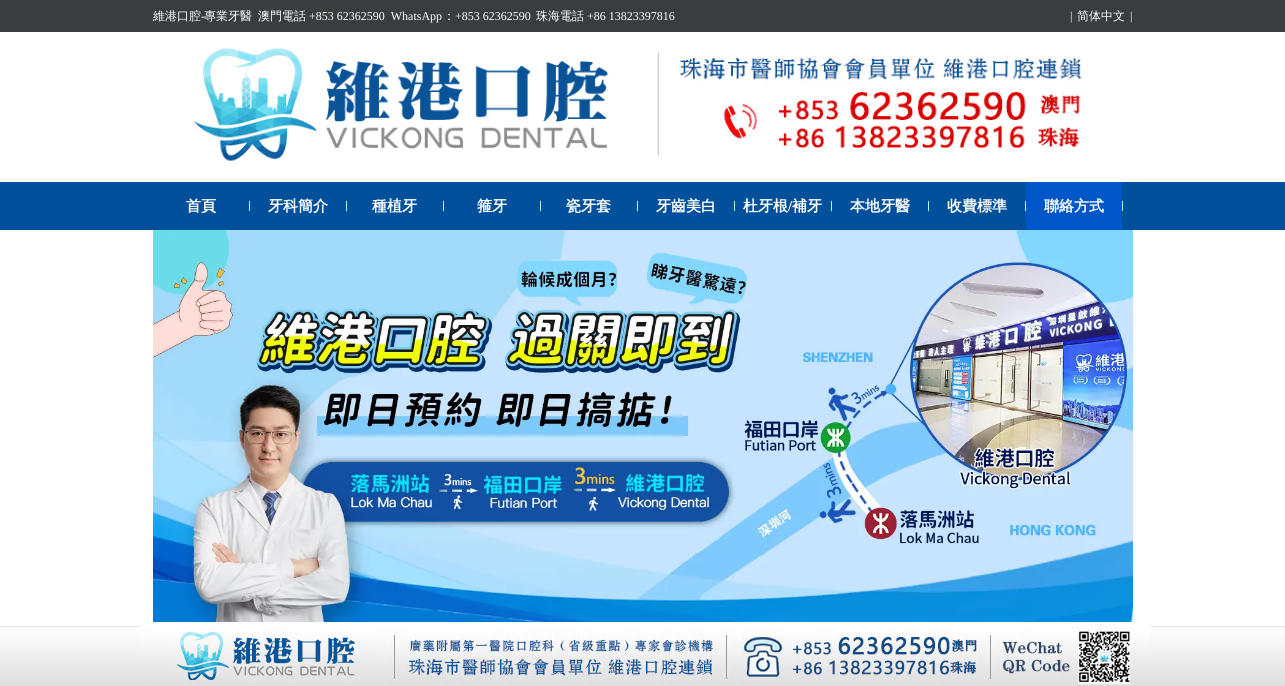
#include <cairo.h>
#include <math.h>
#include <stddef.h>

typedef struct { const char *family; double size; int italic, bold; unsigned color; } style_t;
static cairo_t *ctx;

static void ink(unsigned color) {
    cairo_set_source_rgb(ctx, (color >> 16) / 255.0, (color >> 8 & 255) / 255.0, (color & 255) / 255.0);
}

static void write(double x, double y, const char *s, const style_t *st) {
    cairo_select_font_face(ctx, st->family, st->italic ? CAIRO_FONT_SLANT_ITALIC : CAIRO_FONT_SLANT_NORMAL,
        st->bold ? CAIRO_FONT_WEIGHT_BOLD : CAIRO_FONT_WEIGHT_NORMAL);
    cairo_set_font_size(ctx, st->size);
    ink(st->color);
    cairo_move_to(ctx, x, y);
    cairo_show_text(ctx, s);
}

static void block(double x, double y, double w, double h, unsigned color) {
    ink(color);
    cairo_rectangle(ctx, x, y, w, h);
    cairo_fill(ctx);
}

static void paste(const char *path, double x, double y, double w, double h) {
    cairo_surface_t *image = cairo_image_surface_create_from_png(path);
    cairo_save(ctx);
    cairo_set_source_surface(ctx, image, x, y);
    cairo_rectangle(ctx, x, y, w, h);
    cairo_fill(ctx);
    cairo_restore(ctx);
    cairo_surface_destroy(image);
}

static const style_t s1 = {"WenQuanYi Zen Hei Medium", 12, 0, 0, 0xffffff};
static const style_t s2 = {"Liberation Serif", 12, 0, 0, 0xffffff};
static const style_t s3 = {"WenQuanYi Zen Hei", 15, 0, 1, 0xffffff};
static const style_t s4 = {"Liberation Serif", 15, 0, 1, 0xffffff};

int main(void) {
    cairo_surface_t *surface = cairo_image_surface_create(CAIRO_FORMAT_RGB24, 1285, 686);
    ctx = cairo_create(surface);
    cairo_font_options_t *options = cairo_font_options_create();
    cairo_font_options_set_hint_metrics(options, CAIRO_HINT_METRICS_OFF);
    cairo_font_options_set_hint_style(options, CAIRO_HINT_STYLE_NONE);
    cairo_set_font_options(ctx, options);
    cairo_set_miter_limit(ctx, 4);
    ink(0xffffff);
    cairo_paint(ctx);
    block(0, 0, 1285, 32, 0x3b3c3e);
    write(153, 20, "維港口腔", &s1);
    write(201, 20, "-", &s2);
    write(204, 20, "專業牙醫", &s1);
    write(258, 20, "澳門電話", &s1);
    write(309, 20, "+853 62362590  WhatsApp", &s2);
    write(443, 20, "：", &s1);
    write(455, 20, "+853 62362590", &s2);
    write(536, 20, "珠海電話", &s1);
    write(587, 20, "+86 13823397816", &s2);
    write(1070, 20, "|", &s2);
    write(1077, 20, "简体中文", &s1);
    write(1130, 20, "|", &s2);
    paste("pic1.png", 193, 48, 889, 113);
    block(0, 182, 1285, 48, 0x02509b);
    write(186, 211, "首頁", &s3);
    block(249, 201, 1, 10, 0xb6fffb);
    write(268, 211, "牙科簡介", &s3);
    block(346, 201, 1, 10, 0xb6fffb);
    write(372, 211, "種植牙", &s3);
    block(443, 201, 1, 10, 0xb6fffb);
    write(477, 211, "箍牙", &s3);
    block(540, 201, 1, 10, 0xb6fffb);
    write(566, 211, "瓷牙套", &s3);
    block(637, 201, 1, 10, 0xb6fffb);
    write(656, 211, "牙齒美白", &s3);
    block(734, 201, 1, 10, 0xb6fffb);
    write(743, 211, "杜牙根", &s3);
    write(788, 211, "/", &s4);
    write(792, 211, "補牙", &s3);
    block(831, 201, 1, 10, 0xb6fffb);
    write(850, 211, "本地牙醫", &s3);
    block(928, 201, 1, 10, 0xb6fffb);
    write(947, 211, "收費標準", &s3);
    block(1025, 201, 1, 10, 0xb6fffb);
    block(1026, 182, 96, 48, 0x0156c9);
    write(1044, 211, "聯絡方式", &s3);
    block(1122, 201, 1, 10, 0xb6fffb);
    paste("pic2.png", 153, 230, 980, 392);
    paste("pic3.png", 0, 626, 1285, 60);
    paste("pic4.png", 140, 626, 1010, 60);
    cairo_surface_write_to_png(surface, "screenshot.png");
    cairo_font_options_destroy(options);
    cairo_destroy(ctx);
    cairo_surface_destroy(surface);
    return 0;
}
